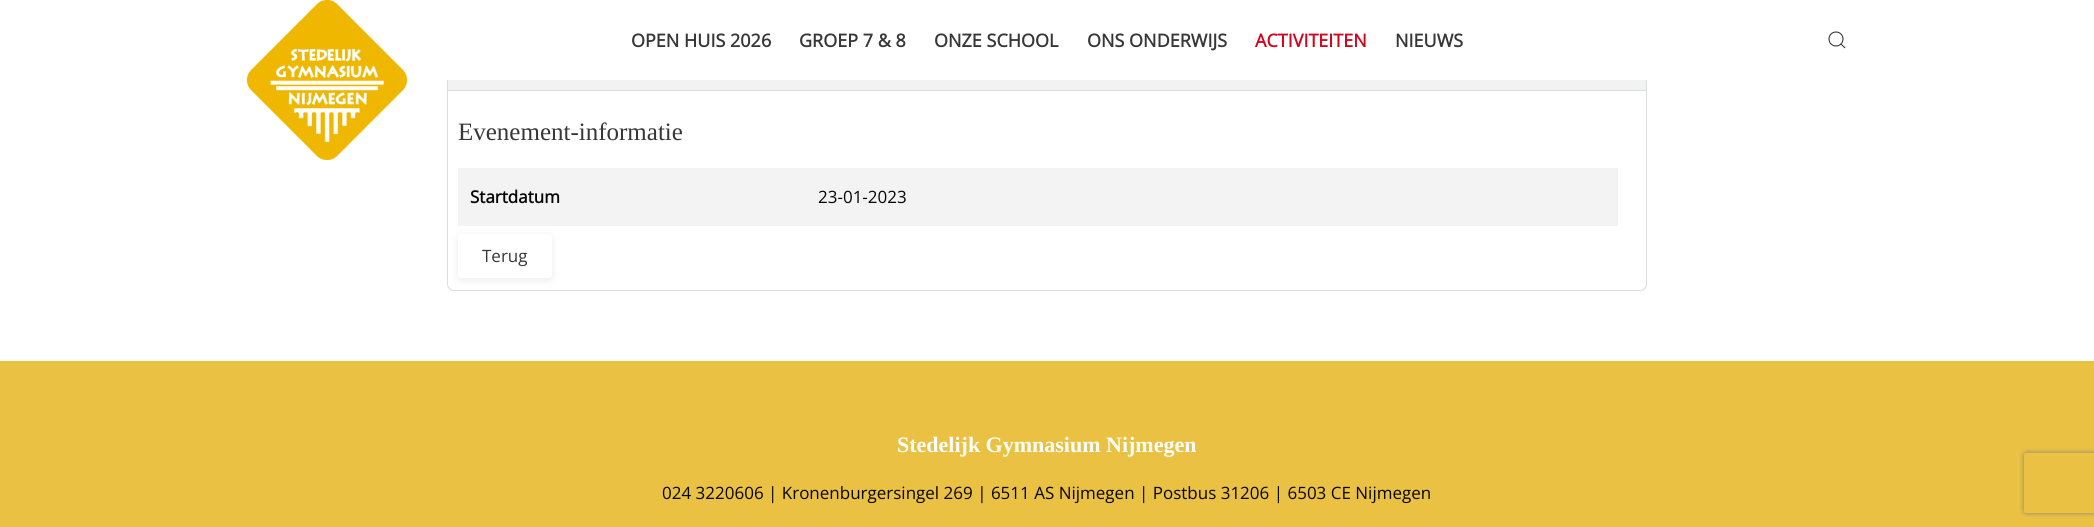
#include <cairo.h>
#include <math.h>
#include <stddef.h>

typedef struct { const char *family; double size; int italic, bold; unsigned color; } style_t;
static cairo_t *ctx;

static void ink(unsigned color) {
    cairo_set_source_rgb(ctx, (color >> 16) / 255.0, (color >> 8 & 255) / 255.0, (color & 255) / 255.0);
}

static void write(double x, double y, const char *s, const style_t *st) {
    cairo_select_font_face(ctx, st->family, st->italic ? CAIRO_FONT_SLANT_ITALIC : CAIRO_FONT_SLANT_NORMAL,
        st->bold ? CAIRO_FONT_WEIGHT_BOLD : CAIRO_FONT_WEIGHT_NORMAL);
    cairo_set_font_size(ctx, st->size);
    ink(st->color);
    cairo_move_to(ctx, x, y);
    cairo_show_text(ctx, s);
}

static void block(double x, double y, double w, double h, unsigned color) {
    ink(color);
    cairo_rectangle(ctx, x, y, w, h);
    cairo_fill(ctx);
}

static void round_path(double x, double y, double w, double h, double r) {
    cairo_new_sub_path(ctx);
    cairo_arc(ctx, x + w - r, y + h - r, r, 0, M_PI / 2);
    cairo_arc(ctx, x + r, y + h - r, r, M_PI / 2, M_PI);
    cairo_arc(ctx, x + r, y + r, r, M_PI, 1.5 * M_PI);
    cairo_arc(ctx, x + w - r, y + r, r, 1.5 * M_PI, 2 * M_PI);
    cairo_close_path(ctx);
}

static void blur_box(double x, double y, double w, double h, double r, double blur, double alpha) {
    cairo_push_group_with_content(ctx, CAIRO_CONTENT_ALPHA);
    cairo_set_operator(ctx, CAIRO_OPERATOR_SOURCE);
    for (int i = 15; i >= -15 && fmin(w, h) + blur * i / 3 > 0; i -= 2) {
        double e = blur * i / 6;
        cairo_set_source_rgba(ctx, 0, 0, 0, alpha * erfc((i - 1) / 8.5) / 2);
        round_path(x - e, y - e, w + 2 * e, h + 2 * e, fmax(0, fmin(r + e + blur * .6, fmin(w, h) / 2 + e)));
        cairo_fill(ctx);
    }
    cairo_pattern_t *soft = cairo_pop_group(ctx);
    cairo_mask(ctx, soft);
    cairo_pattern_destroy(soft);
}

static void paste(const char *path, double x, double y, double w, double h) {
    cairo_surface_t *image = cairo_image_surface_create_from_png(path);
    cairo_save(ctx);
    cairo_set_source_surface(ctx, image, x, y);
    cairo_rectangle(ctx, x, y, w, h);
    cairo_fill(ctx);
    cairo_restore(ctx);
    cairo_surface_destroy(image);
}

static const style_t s1 = {"Open Sans", 18, 0, 1, 0x373737};
static const style_t s2 = {"Open Sans", 18, 0, 1, 0xd10520};
static const style_t s3 = {"Liberation Serif", 25, 0, 0, 0x373737};
static const style_t s4 = {"Open Sans", 17, 0, 1, 0x050505};
static const style_t s5 = {"Open Sans", 17, 0, 0, 0x050505};
static const style_t s6 = {"Open Sans", 17, 0, 0, 0x373737};
static const style_t s7 = {"Liberation Serif", 22, 0, 1, 0xffffff};

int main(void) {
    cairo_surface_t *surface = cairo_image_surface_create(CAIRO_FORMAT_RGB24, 2094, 527);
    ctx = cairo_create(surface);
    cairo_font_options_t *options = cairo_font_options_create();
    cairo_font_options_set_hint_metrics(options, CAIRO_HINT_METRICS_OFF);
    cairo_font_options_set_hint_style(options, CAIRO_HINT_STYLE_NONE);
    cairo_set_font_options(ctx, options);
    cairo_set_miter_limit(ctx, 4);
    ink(0xffffff);
    cairo_paint(ctx);
    block(448, 80, 1198, 10, 0xf2f2f2);
    cairo_rectangle(ctx, 447.5, 23.5, 1199, 67);
    ink(0xdbdee1);
    cairo_set_line_width(ctx, 1);
    cairo_stroke(ctx);
    block(447, 23, 1200, 57, 0xffffff);
    paste("pic1.png", 247, 0, 160, 160);
    write(631, 47, "OPEN HUIS 2026", &s1);
    write(799, 47, "GROEP 7 & 8", &s1);
    write(934, 47, "ONZE SCHOOL", &s1);
    write(1087, 47, "ONS ONDERWIJS", &s1);
    write(1255, 47, "ACTIVITEITEN", &s2);
    write(1395, 47, "NIEUWS", &s1);
    cairo_new_path(ctx);
    cairo_arc(ctx, 1836, 39, 7, 0, 2 * M_PI);
    cairo_set_line_width(ctx, 1.1);
    cairo_stroke(ctx);
    cairo_new_path(ctx);
    cairo_move_to(ctx, 1841, 44);
    cairo_line_to(ctx, 1845, 48);
    cairo_close_path(ctx);
    cairo_stroke(ctx);
    ink(0xdbdee1);
    cairo_set_fill_rule(ctx, CAIRO_FILL_RULE_EVEN_ODD);
    cairo_new_path(ctx);
    cairo_move_to(ctx, 447, 91);
    cairo_line_to(ctx, 1647, 91);
    cairo_line_to(ctx, 1647, 284);
    cairo_curve_to(ctx, 1647, 288, 1644, 291, 1640, 291);
    cairo_line_to(ctx, 454, 291);
    cairo_curve_to(ctx, 450, 291, 447, 288, 447, 284);
    cairo_close_path(ctx);
    cairo_move_to(ctx, 448, 91);
    cairo_line_to(ctx, 1646, 91);
    cairo_line_to(ctx, 1646, 284);
    cairo_curve_to(ctx, 1646, 287, 1643, 290, 1640, 290);
    cairo_line_to(ctx, 454, 290);
    cairo_curve_to(ctx, 451, 290, 448, 287, 448, 284);
    cairo_close_path(ctx);
    cairo_fill(ctx);
    write(458, 140, "Evenement-informatie", &s3);
    ink(0x000000);
    blur_box(458, 236, 94, 44, 3, 4, 0.08);
    block(458, 168, 1160, 58, 0xf3f3f3);
    write(470, 203, "Startdatum", &s4);
    write(818, 203, "23-01-2023", &s5);
    ink(0xffffff);
    round_path(458, 234, 94, 44, 3);
    cairo_fill(ctx);
    write(482, 262, "Terug", &s6);
    block(0, 361, 2094, 166, 0xebc143);
    write(897, 452, "Stedelijk Gymnasium Nijmegen", &s7);
    write(662, 499, "024 3220606 | Kronenburgersingel 269 | 6511 AS Nijmegen | Postbus 31206 | 6503 CE Nijmegen", &s5);
    cairo_save(ctx);
    cairo_new_path(ctx);
    cairo_move_to(ctx, 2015, 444);
    cairo_line_to(ctx, 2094, 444);
    cairo_line_to(ctx, 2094, 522);
    cairo_line_to(ctx, 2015, 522);
    cairo_close_path(ctx);
    cairo_move_to(ctx, 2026, 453);
    cairo_line_to(ctx, 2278, 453);
    cairo_curve_to(ctx, 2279, 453, 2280, 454, 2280, 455);
    cairo_line_to(ctx, 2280, 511);
    cairo_curve_to(ctx, 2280, 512, 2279, 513, 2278, 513);
    cairo_line_to(ctx, 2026, 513);
    cairo_curve_to(ctx, 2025, 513, 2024, 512, 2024, 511);
    cairo_line_to(ctx, 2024, 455);
    cairo_curve_to(ctx, 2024, 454, 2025, 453, 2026, 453);
    cairo_close_path(ctx);
    cairo_clip(ctx);
    ink(0x808080);
    blur_box(2024, 453, 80, 60, 2, 2.5, 1);
    cairo_restore(ctx);
    cairo_surface_write_to_png(surface, "screenshot.png");
    cairo_font_options_destroy(options);
    cairo_destroy(ctx);
    cairo_surface_destroy(surface);
    return 0;
}
